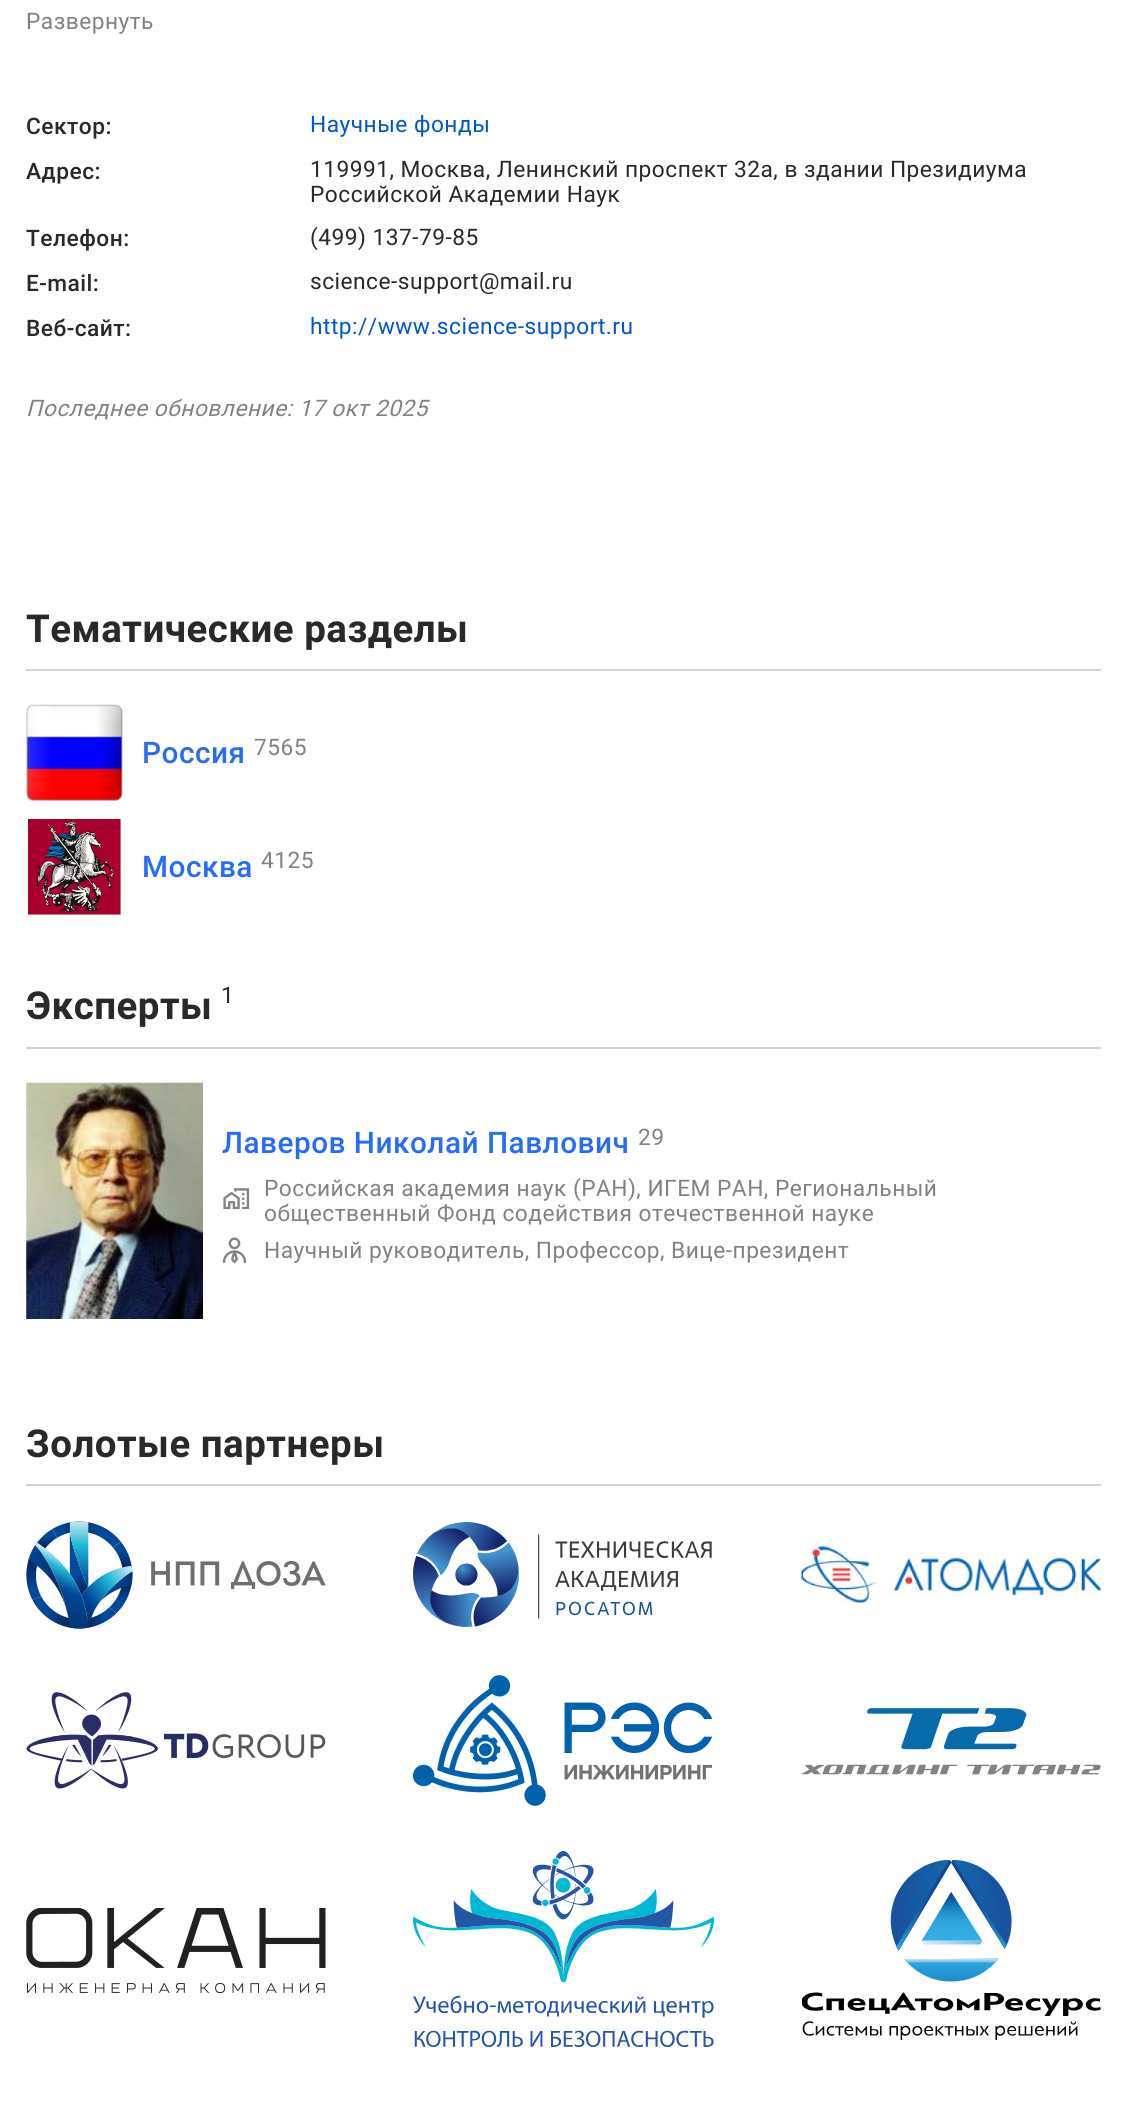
#include <cairo.h>
#include <math.h>
#include <stddef.h>

static cairo_t *ctx;

static void ink(unsigned color) {
    cairo_set_source_rgb(ctx, (color >> 16) / 255.0, (color >> 8 & 255) / 255.0, (color & 255) / 255.0);
}

static void write_spaced(double x, double y, const char *s, double letter, double word) {
    cairo_move_to(ctx, x, y);
    while (*s) {
        char ch[5] = {0};
        int n = 0;
        do ch[n++] = *s++; while ((*s & 0xC0) == 0x80);
        cairo_show_text(ctx, ch);
        cairo_rel_move_to(ctx, letter + word * (*ch == ' '), 0);
    }
}

static void block(double x, double y, double w, double h, unsigned color) {
    ink(color);
    cairo_rectangle(ctx, x, y, w, h);
    cairo_fill(ctx);
}

static void paste(const char *path, double x, double y, double w, double h) {
    cairo_surface_t *image = cairo_image_surface_create_from_png(path);
    cairo_save(ctx);
    cairo_set_source_surface(ctx, image, x, y);
    cairo_rectangle(ctx, x, y, w, h);
    cairo_fill(ctx);
    cairo_restore(ctx);
    cairo_surface_destroy(image);
}

int main(void) {
    cairo_surface_t *surface = cairo_image_surface_create(CAIRO_FORMAT_RGB24, 1127, 2128);
    ctx = cairo_create(surface);
    cairo_font_options_t *options = cairo_font_options_create();
    cairo_font_options_set_hint_metrics(options, CAIRO_HINT_METRICS_OFF);
    cairo_font_options_set_hint_style(options, CAIRO_HINT_STYLE_NONE);
    cairo_set_font_options(ctx, options);
    cairo_set_miter_limit(ctx, 4);
    ink(0xffffff);
    cairo_paint(ctx);
    cairo_select_font_face(ctx, "Roboto", CAIRO_FONT_SLANT_NORMAL, CAIRO_FONT_WEIGHT_NORMAL);
    cairo_set_font_size(ctx, 22.75);
    ink(0x828282);
    write_spaced(26, 29, "Развернуть", 0.47, 0);
    cairo_select_font_face(ctx, "Roboto Medium", CAIRO_FONT_SLANT_NORMAL, CAIRO_FONT_WEIGHT_NORMAL);
    ink(0x292929);
    write_spaced(26, 134, "Сектор:", 0.47, 0);
    cairo_select_font_face(ctx, "Roboto", CAIRO_FONT_SLANT_NORMAL, CAIRO_FONT_WEIGHT_NORMAL);
    ink(0x0057c8);
    write_spaced(310, 132, "Научные фонды", 0.47, 0);
    cairo_select_font_face(ctx, "Roboto Medium", CAIRO_FONT_SLANT_NORMAL, CAIRO_FONT_WEIGHT_NORMAL);
    ink(0x292929);
    write_spaced(26, 179, "Адрес:", 0.47, 0);
    cairo_select_font_face(ctx, "Roboto", CAIRO_FONT_SLANT_NORMAL, CAIRO_FONT_WEIGHT_NORMAL);
    write_spaced(310, 177, "119991, Москва, Ленинский проспект 32а, в здании Президиума", 0.47, 0);
    write_spaced(310, 202, "Российской Академии Наук", 0.47, 0);
    cairo_select_font_face(ctx, "Roboto Medium", CAIRO_FONT_SLANT_NORMAL, CAIRO_FONT_WEIGHT_NORMAL);
    write_spaced(26, 246, "Телефон:", 0.47, 0);
    cairo_select_font_face(ctx, "Roboto", CAIRO_FONT_SLANT_NORMAL, CAIRO_FONT_WEIGHT_NORMAL);
    write_spaced(310, 245, "(499) 137-79-85", 0.47, 0);
    cairo_select_font_face(ctx, "Roboto Medium", CAIRO_FONT_SLANT_NORMAL, CAIRO_FONT_WEIGHT_NORMAL);
    write_spaced(26, 291, "E-mail:", 0.47, 0);
    cairo_select_font_face(ctx, "Roboto", CAIRO_FONT_SLANT_NORMAL, CAIRO_FONT_WEIGHT_NORMAL);
    write_spaced(310, 289, "science-support@mail.ru", 0.47, 0);
    cairo_select_font_face(ctx, "Roboto Medium", CAIRO_FONT_SLANT_NORMAL, CAIRO_FONT_WEIGHT_NORMAL);
    write_spaced(26, 336, "Веб-сайт:", 0.47, 0);
    cairo_select_font_face(ctx, "Roboto", CAIRO_FONT_SLANT_NORMAL, CAIRO_FONT_WEIGHT_NORMAL);
    ink(0x0057c8);
    write_spaced(310, 334, "http://www.science-support.ru", 0.47, 0);
    cairo_select_font_face(ctx, "Roboto", CAIRO_FONT_SLANT_ITALIC, CAIRO_FONT_WEIGHT_NORMAL);
    ink(0x828282);
    write_spaced(26, 416, "Последнее обновление: 17 окт 2025", 0.47, 0);
    block(26, 669, 1075, 2, 0xd3d3d3);
    cairo_select_font_face(ctx, "Roboto", CAIRO_FONT_SLANT_NORMAL, CAIRO_FONT_WEIGHT_BOLD);
    cairo_set_font_size(ctx, 38.5);
    ink(0x292929);
    write_spaced(26, 642, "Тематические разделы", 0.47, 0);
    paste("pic1.png", 26, 704, 97, 97);
    cairo_select_font_face(ctx, "Roboto Medium", CAIRO_FONT_SLANT_NORMAL, CAIRO_FONT_WEIGHT_NORMAL);
    cairo_set_font_size(ctx, 29.75);
    ink(0x266cf9);
    write_spaced(142, 763, "Россия", 0.47, 0);
    cairo_select_font_face(ctx, "Roboto", CAIRO_FONT_SLANT_NORMAL, CAIRO_FONT_WEIGHT_NORMAL);
    cairo_set_font_size(ctx, 22.75);
    ink(0x828282);
    write_spaced(254, 755, "7565", 0.47, 0);
    paste("pic2.png", 28, 819, 93, 96);
    cairo_select_font_face(ctx, "Roboto Medium", CAIRO_FONT_SLANT_NORMAL, CAIRO_FONT_WEIGHT_NORMAL);
    cairo_set_font_size(ctx, 29.75);
    ink(0x266cf9);
    write_spaced(142, 877, "Москва", 0.47, 0);
    cairo_select_font_face(ctx, "Roboto", CAIRO_FONT_SLANT_NORMAL, CAIRO_FONT_WEIGHT_NORMAL);
    cairo_set_font_size(ctx, 22.75);
    ink(0x828282);
    write_spaced(261, 868, "4125", 0.47, 0);
    block(26, 1047, 1075, 2, 0xd3d3d3);
    cairo_select_font_face(ctx, "Roboto", CAIRO_FONT_SLANT_NORMAL, CAIRO_FONT_WEIGHT_BOLD);
    cairo_set_font_size(ctx, 38.5);
    ink(0x292929);
    write_spaced(26, 1019, "Эксперты", 0.47, 0);
    cairo_select_font_face(ctx, "Roboto", CAIRO_FONT_SLANT_NORMAL, CAIRO_FONT_WEIGHT_NORMAL);
    cairo_set_font_size(ctx, 22.75);
    write_spaced(221, 1003, "1", 0.47, 0);
    paste("pic3.png", 26, 1082, 177, 237);
    cairo_select_font_face(ctx, "Roboto Medium", CAIRO_FONT_SLANT_NORMAL, CAIRO_FONT_WEIGHT_NORMAL);
    cairo_set_font_size(ctx, 29.75);
    ink(0x266cf9);
    write_spaced(222, 1153, "Лаверов Николай Павлович", 0.47, 0);
    cairo_select_font_face(ctx, "Roboto", CAIRO_FONT_SLANT_NORMAL, CAIRO_FONT_WEIGHT_NORMAL);
    cairo_set_font_size(ctx, 22.75);
    ink(0x828282);
    write_spaced(638, 1145, "29", 0.47, 0);
    paste("pic4.png", 223, 1188, 27, 21);
    write_spaced(264, 1196, "Российская академия наук (РАН), ИГЕМ РАН, Региональный", 0.47, 0);
    write_spaced(264, 1221, "общественный Фонд содействия отечественной науке", 0.47, 0);
    paste("pic5.png", 222, 1237, 25, 27);
    write_spaced(264, 1258, "Научный руководитель, Профессор, Вице-президент", 0.47, 0);
    block(26, 1484, 1075, 2, 0xd3d3d3);
    cairo_select_font_face(ctx, "Roboto", CAIRO_FONT_SLANT_NORMAL, CAIRO_FONT_WEIGHT_BOLD);
    cairo_set_font_size(ctx, 38.5);
    ink(0x292929);
    write_spaced(26, 1457, "Золотые партнеры", 0.47, 0);
    paste("pic6.png", 26, 1521, 300, 108);
    paste("pic7.png", 413, 1522, 299, 105);
    paste("pic8.png", 801, 1546, 300, 57);
    paste("pic9.png", 26, 1692, 300, 97);
    paste("pic10.png", 413, 1675, 299, 131);
    paste("pic11.png", 802, 1708, 299, 67);
    paste("pic12.png", 26, 1908, 300, 85);
    paste("pic13.png", 413, 1851, 301, 196);
    paste("pic14.png", 802, 1860, 299, 180);
    cairo_surface_write_to_png(surface, "screenshot.png");
    cairo_font_options_destroy(options);
    cairo_destroy(ctx);
    cairo_surface_destroy(surface);
    return 0;
}
